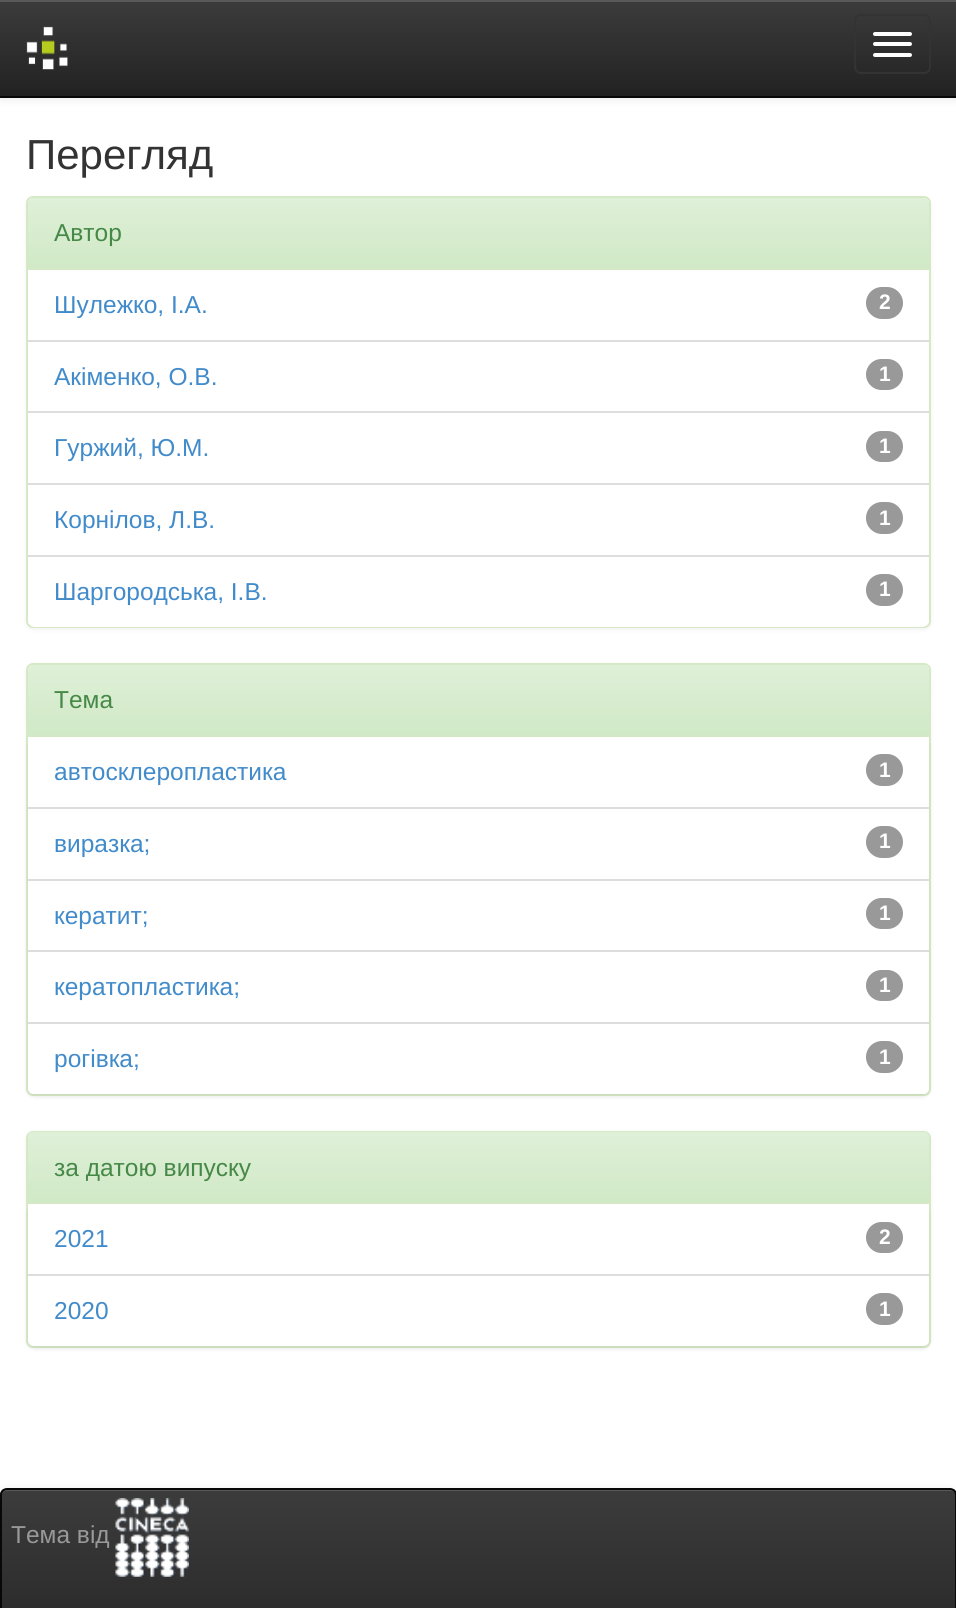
#include <cairo.h>
#include <math.h>
#include <stddef.h>

typedef struct { const char *family; double size; int italic, bold; unsigned color; } style_t;
static cairo_t *ctx;

static void ink(unsigned color) {
    cairo_set_source_rgb(ctx, (color >> 16) / 255.0, (color >> 8 & 255) / 255.0, (color & 255) / 255.0);
}

static void write(double x, double y, const char *s, const style_t *st) {
    cairo_select_font_face(ctx, st->family, st->italic ? CAIRO_FONT_SLANT_ITALIC : CAIRO_FONT_SLANT_NORMAL,
        st->bold ? CAIRO_FONT_WEIGHT_BOLD : CAIRO_FONT_WEIGHT_NORMAL);
    cairo_set_font_size(ctx, st->size);
    ink(st->color);
    cairo_move_to(ctx, x, y);
    cairo_show_text(ctx, s);
}

static void block(double x, double y, double w, double h, unsigned color) {
    ink(color);
    cairo_rectangle(ctx, x, y, w, h);
    cairo_fill(ctx);
}

static void round_path(double x, double y, double w, double h, double r) {
    cairo_new_sub_path(ctx);
    cairo_arc(ctx, x + w - r, y + h - r, r, 0, M_PI / 2);
    cairo_arc(ctx, x + r, y + h - r, r, M_PI / 2, M_PI);
    cairo_arc(ctx, x + r, y + r, r, M_PI, 1.5 * M_PI);
    cairo_arc(ctx, x + w - r, y + r, r, 1.5 * M_PI, 2 * M_PI);
    cairo_close_path(ctx);
}

static void blur_box(double x, double y, double w, double h, double r, double blur, double alpha) {
    cairo_push_group_with_content(ctx, CAIRO_CONTENT_ALPHA);
    cairo_set_operator(ctx, CAIRO_OPERATOR_SOURCE);
    for (int i = 15; i >= -15 && fmin(w, h) + blur * i / 3 > 0; i -= 2) {
        double e = blur * i / 6;
        cairo_set_source_rgba(ctx, 0, 0, 0, alpha * erfc((i - 1) / 8.5) / 2);
        round_path(x - e, y - e, w + 2 * e, h + 2 * e, fmax(0, fmin(r + e + blur * .6, fmin(w, h) / 2 + e)));
        cairo_fill(ctx);
    }
    cairo_pattern_t *soft = cairo_pop_group(ctx);
    cairo_mask(ctx, soft);
    cairo_pattern_destroy(soft);
}

static void paste(const char *path, double x, double y, double w, double h) {
    cairo_surface_t *image = cairo_image_surface_create_from_png(path);
    cairo_save(ctx);
    cairo_set_source_surface(ctx, image, x, y);
    cairo_rectangle(ctx, x, y, w, h);
    cairo_fill(ctx);
    cairo_restore(ctx);
    cairo_surface_destroy(image);
}

static const style_t s1 = {"Liberation Sans", 42, 0, 0, 0x333333};
static const style_t s2 = {"Liberation Sans", 24.5, 0, 0, 0x468847};
static const style_t s3 = {"Liberation Sans", 24.5, 0, 0, 0x428bca};
static const style_t s4 = {"Liberation Sans", 21, 0, 1, 0xffffff};
static const style_t s5 = {"Liberation Sans", 24.5, 0, 0, 0x999999};

int main(void) {
    cairo_surface_t *surface = cairo_image_surface_create(CAIRO_FORMAT_RGB24, 956, 1608);
    ctx = cairo_create(surface);
    cairo_font_options_t *options = cairo_font_options_create();
    cairo_font_options_set_hint_metrics(options, CAIRO_HINT_METRICS_OFF);
    cairo_font_options_set_hint_style(options, CAIRO_HINT_STYLE_NONE);
    cairo_set_font_options(ctx, options);
    cairo_set_miter_limit(ctx, 4);
    cairo_pattern_t *gradient;
    ink(0xffffff);
    cairo_paint(ctx);
    ink(0x000000);
    blur_box(0, 2, 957, 98, 0, 4.5, 0.07);
    gradient = cairo_pattern_create_linear(479, 0, 479, 96);
    cairo_pattern_add_color_stop_rgba(gradient, 0, 0.235, 0.235, 0.235, 1);
    cairo_pattern_add_color_stop_rgba(gradient, 1, 0.133, 0.133, 0.133, 1);
    cairo_set_source(ctx, gradient);
    cairo_pattern_destroy(gradient);
    cairo_rectangle(ctx, 0, 2, 956, 94);
    cairo_fill(ctx);
    block(0, 0, 956, 2, 0x595959);
    block(0, 96, 956, 2, 0x080808);
    paste("pic1.png", 26, 26, 42, 44);
    round_path(855, 15, 75, 58, 6);
    ink(0x333333);
    cairo_stroke(ctx);
    ink(0xffffff);
    round_path(873, 32, 39, 4, 2);
    cairo_fill(ctx);
    round_path(873, 42, 39, 4, 2);
    cairo_fill(ctx);
    round_path(873, 53, 39, 4, 2);
    cairo_fill(ctx);
    write(26, 169, "Перегляд", &s1);
    ink(0x000000);
    blur_box(26, 198, 905, 432, 7, 2, 0.05);
    ink(0xffffff);
    round_path(27, 197, 903, 430, 6);
    cairo_fill_preserve(ctx);
    ink(0xd6e9c6);
    cairo_stroke(ctx);
    gradient = cairo_pattern_create_linear(479, 198, 479, 268);
    cairo_pattern_add_color_stop_rgba(gradient, 0, 0.875, 0.941, 0.847, 1);
    cairo_pattern_add_color_stop_rgba(gradient, 1, 0.816, 0.914, 0.776, 1);
    cairo_set_source(ctx, gradient);
    cairo_pattern_destroy(gradient);
    cairo_new_path(ctx);
    cairo_move_to(ctx, 33, 198);
    cairo_line_to(ctx, 924, 198);
    cairo_curve_to(ctx, 927, 198, 929, 200, 929, 203);
    cairo_line_to(ctx, 929, 268);
    cairo_line_to(ctx, 28, 268);
    cairo_line_to(ctx, 28, 203);
    cairo_curve_to(ctx, 28, 200, 30, 198, 33, 198);
    cairo_close_path(ctx);
    cairo_fill(ctx);
    block(28, 268, 901, 2, 0xd6e9c6);
    write(54, 241, "Автор", &s2);
    write(54, 313, "Шулежко, І.А.", &s3);
    ink(0x999999);
    round_path(866, 287, 37, 32, 16);
    cairo_fill(ctx);
    write(879, 309, "2", &s4);
    block(28, 340, 901, 2, 0xdddddd);
    block(28, 411, 901, 2, 0xdddddd);
    write(54, 385, "Акіменко, О.В.", &s3);
    ink(0x999999);
    round_path(866, 359, 37, 31, 15.5);
    cairo_fill(ctx);
    write(879, 381, "1", &s4);
    block(28, 483, 901, 2, 0xdddddd);
    write(54, 456, "Гуржий, Ю.М.", &s3);
    ink(0x999999);
    round_path(866, 431, 37, 31, 15.5);
    cairo_fill(ctx);
    write(879, 453, "1", &s4);
    write(54, 528, "Корнілов, Л.В.", &s3);
    ink(0x999999);
    round_path(866, 502, 37, 32, 16);
    cairo_fill(ctx);
    write(879, 525, "1", &s4);
    cairo_new_path(ctx);
    cairo_move_to(ctx, 28, 555);
    cairo_line_to(ctx, 929, 555);
    cairo_line_to(ctx, 929, 620);
    cairo_curve_to(ctx, 929, 624, 926, 627, 922, 627);
    cairo_line_to(ctx, 35, 627);
    cairo_curve_to(ctx, 31, 627, 28, 624, 28, 620);
    cairo_close_path(ctx);
    cairo_fill(ctx);
    block(28, 555, 901, 2, 0xdddddd);
    write(54, 600, "Шаргородська, І.В.", &s3);
    ink(0x999999);
    round_path(866, 574, 37, 32, 16);
    cairo_fill(ctx);
    write(879, 596, "1", &s4);
    ink(0x000000);
    blur_box(26, 665, 905, 432, 7, 2, 0.05);
    ink(0xffffff);
    round_path(27, 664, 903, 431, 6);
    cairo_fill_preserve(ctx);
    ink(0xd6e9c6);
    cairo_stroke(ctx);
    gradient = cairo_pattern_create_linear(479, 665, 479, 735);
    cairo_pattern_add_color_stop_rgba(gradient, 0, 0.875, 0.941, 0.847, 1);
    cairo_pattern_add_color_stop_rgba(gradient, 1, 0.816, 0.914, 0.776, 1);
    cairo_set_source(ctx, gradient);
    cairo_pattern_destroy(gradient);
    cairo_new_path(ctx);
    cairo_move_to(ctx, 33, 665);
    cairo_line_to(ctx, 924, 665);
    cairo_curve_to(ctx, 927, 665, 929, 667, 929, 670);
    cairo_line_to(ctx, 929, 735);
    cairo_line_to(ctx, 28, 735);
    cairo_line_to(ctx, 28, 670);
    cairo_curve_to(ctx, 28, 667, 30, 665, 33, 665);
    cairo_close_path(ctx);
    cairo_fill(ctx);
    block(28, 735, 901, 2, 0xd6e9c6);
    write(54, 708, "Тема", &s2);
    cairo_save(ctx);
    cairo_set_fill_rule(ctx, CAIRO_FILL_RULE_EVEN_ODD);
    cairo_new_path(ctx);
    cairo_move_to(ctx, 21, 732);
    cairo_line_to(ctx, 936, 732);
    cairo_line_to(ctx, 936, 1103);
    cairo_line_to(ctx, 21, 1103);
    cairo_close_path(ctx);
    cairo_move_to(ctx, 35, 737);
    cairo_line_to(ctx, 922, 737);
    cairo_curve_to(ctx, 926, 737, 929, 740, 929, 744);
    cairo_line_to(ctx, 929, 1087);
    cairo_curve_to(ctx, 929, 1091, 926, 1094, 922, 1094);
    cairo_line_to(ctx, 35, 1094);
    cairo_curve_to(ctx, 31, 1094, 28, 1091, 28, 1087);
    cairo_line_to(ctx, 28, 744);
    cairo_curve_to(ctx, 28, 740, 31, 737, 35, 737);
    cairo_close_path(ctx);
    cairo_clip(ctx);
    ink(0x000000);
    blur_box(28, 739, 901, 357, 7, 2, 0.07);
    cairo_restore(ctx);
    block(28, 740, 1, 1, 0xffffff);
    block(28, 807, 901, 2, 0xdddddd);
    write(54, 780, "автосклеропластика", &s3);
    ink(0x999999);
    round_path(866, 754, 37, 32, 16);
    cairo_fill(ctx);
    write(879, 777, "1", &s4);
    write(54, 852, "виразка;", &s3);
    ink(0x999999);
    round_path(866, 826, 37, 32, 16);
    cairo_fill(ctx);
    write(879, 848, "1", &s4);
    block(28, 879, 901, 2, 0xdddddd);
    block(28, 950, 901, 2, 0xdddddd);
    write(54, 924, "кератит;", &s3);
    ink(0x999999);
    round_path(866, 898, 37, 31, 15.5);
    cairo_fill(ctx);
    write(879, 920, "1", &s4);
    write(54, 995, "кератопластика;", &s3);
    ink(0x999999);
    round_path(866, 970, 37, 31, 15.5);
    cairo_fill(ctx);
    write(879, 992, "1", &s4);
    cairo_new_path(ctx);
    cairo_move_to(ctx, 28, 1022);
    cairo_line_to(ctx, 929, 1022);
    cairo_line_to(ctx, 929, 1087);
    cairo_curve_to(ctx, 929, 1091, 926, 1094, 922, 1094);
    cairo_line_to(ctx, 35, 1094);
    cairo_curve_to(ctx, 31, 1094, 28, 1091, 28, 1087);
    cairo_close_path(ctx);
    cairo_fill(ctx);
    block(28, 1022, 901, 2, 0xdddddd);
    write(54, 1067, "рогівка;", &s3);
    ink(0x999999);
    round_path(866, 1041, 37, 32, 16);
    cairo_fill(ctx);
    write(879, 1064, "1", &s4);
    ink(0x000000);
    blur_box(26, 1132, 905, 217, 7, 2, 0.05);
    ink(0xffffff);
    round_path(27, 1132, 903, 215, 6);
    cairo_fill_preserve(ctx);
    ink(0xd6e9c6);
    cairo_stroke(ctx);
    gradient = cairo_pattern_create_linear(479, 1132, 479, 1202);
    cairo_pattern_add_color_stop_rgba(gradient, 0, 0.875, 0.941, 0.847, 1);
    cairo_pattern_add_color_stop_rgba(gradient, 1, 0.816, 0.914, 0.776, 1);
    cairo_set_source(ctx, gradient);
    cairo_pattern_destroy(gradient);
    cairo_new_path(ctx);
    cairo_move_to(ctx, 33, 1132);
    cairo_line_to(ctx, 924, 1132);
    cairo_curve_to(ctx, 927, 1132, 929, 1134, 929, 1137);
    cairo_line_to(ctx, 929, 1202);
    cairo_line_to(ctx, 28, 1202);
    cairo_line_to(ctx, 28, 1137);
    cairo_curve_to(ctx, 28, 1134, 30, 1132, 33, 1132);
    cairo_close_path(ctx);
    cairo_fill(ctx);
    block(28, 1202, 901, 2, 0xd6e9c6);
    write(54, 1176, "за датою випуску", &s2);
    ink(0x000000);
    blur_box(28, 1206, 901, 142, 7, 2, 0.07);
    block(28, 1204, 901, 70, 0xffffff);
    write(54, 1247, "2021", &s3);
    ink(0x999999);
    round_path(866, 1222, 37, 31, 15.5);
    cairo_fill(ctx);
    write(879, 1244, "2", &s4);
    cairo_new_path(ctx);
    cairo_move_to(ctx, 28, 1274);
    cairo_line_to(ctx, 929, 1274);
    cairo_line_to(ctx, 929, 1339);
    cairo_curve_to(ctx, 929, 1343, 926, 1346, 922, 1346);
    cairo_line_to(ctx, 35, 1346);
    cairo_curve_to(ctx, 31, 1346, 28, 1343, 28, 1339);
    cairo_close_path(ctx);
    cairo_fill(ctx);
    block(28, 1274, 901, 2, 0xdddddd);
    write(54, 1319, "2020", &s3);
    ink(0x999999);
    round_path(866, 1293, 37, 32, 16);
    cairo_fill(ctx);
    write(879, 1316, "1", &s4);
    ink(0x000000);
    blur_box(0, 1489, 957, 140, 7, 4.5, 0.07);
    cairo_save(ctx);
    round_path(0, 1488, 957, 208, 7);
    cairo_clip(ctx);
    gradient = cairo_pattern_create_linear(479, 1489, 479, 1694);
    cairo_pattern_add_color_stop_rgba(gradient, 0, 0.235, 0.235, 0.235, 1);
    cairo_pattern_add_color_stop_rgba(gradient, 1, 0.133, 0.133, 0.133, 1);
    cairo_set_source(ctx, gradient);
    cairo_pattern_destroy(gradient);
    cairo_rectangle(ctx, 0, 1489, 956, 119);
    cairo_fill(ctx);
    cairo_restore(ctx);
    ink(0x595959);
    cairo_new_path(ctx);
    cairo_move_to(ctx, 7, 1491);
    cairo_line_to(ctx, 950, 1491);
    cairo_curve_to(ctx, 953, 1491, 956, 1493, 956, 1496);
    cairo_curve_to(ctx, 956, 1493, 955, 1489, 951, 1489);
    cairo_line_to(ctx, 7, 1489);
    cairo_curve_to(ctx, 3, 1489, 2, 1493, 2, 1496);
    cairo_curve_to(ctx, 2, 1493, 4, 1491, 7, 1491);
    cairo_close_path(ctx);
    cairo_fill(ctx);
    round_path(1, 1489, 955, 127, 6);
    ink(0x080808);
    cairo_stroke(ctx);
    write(11, 1543, "Тема від", &s5);
    paste("pic2.png", 115, 1498, 74, 79);
    cairo_surface_write_to_png(surface, "screenshot.png");
    cairo_font_options_destroy(options);
    cairo_destroy(ctx);
    cairo_surface_destroy(surface);
    return 0;
}
